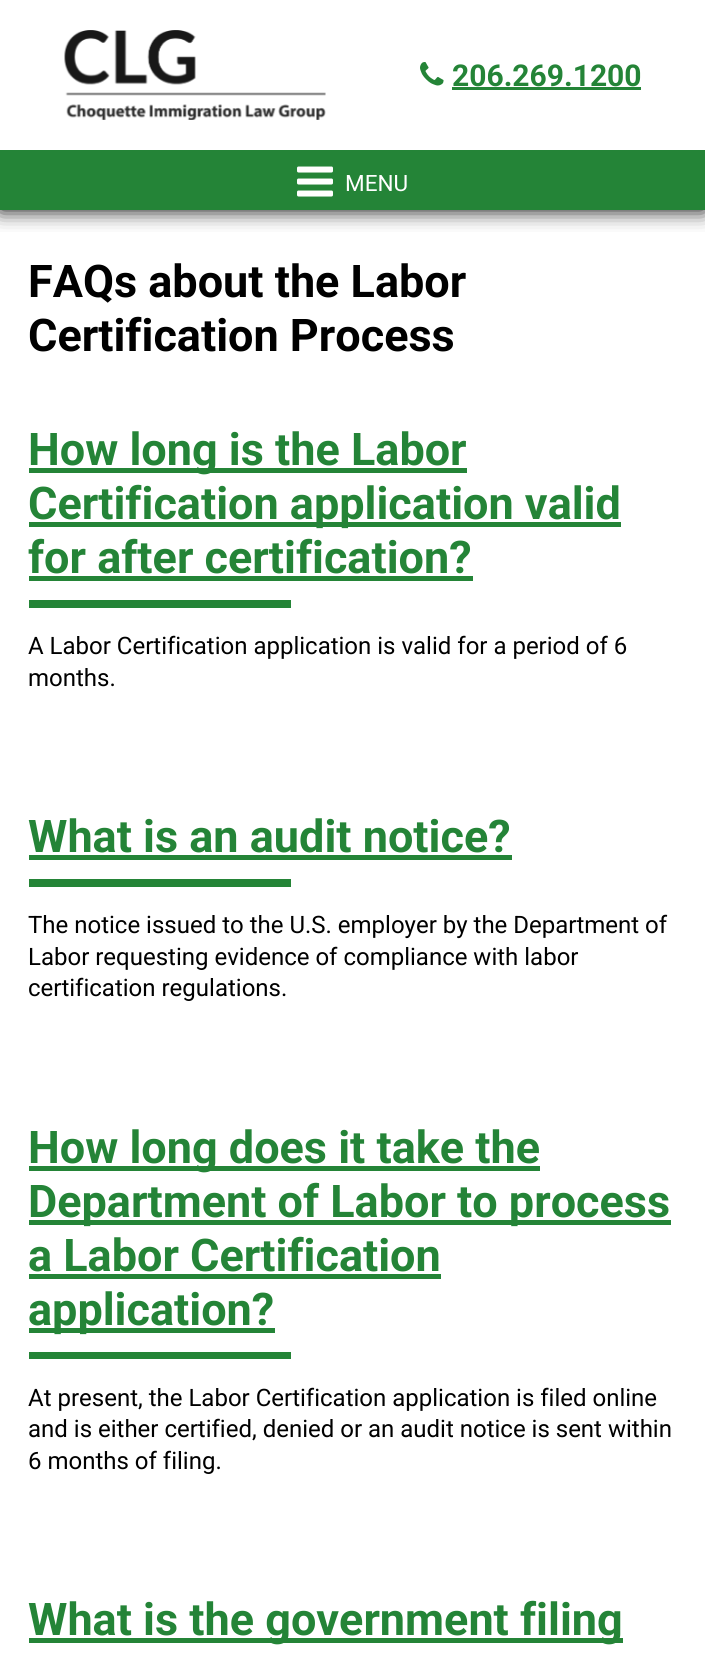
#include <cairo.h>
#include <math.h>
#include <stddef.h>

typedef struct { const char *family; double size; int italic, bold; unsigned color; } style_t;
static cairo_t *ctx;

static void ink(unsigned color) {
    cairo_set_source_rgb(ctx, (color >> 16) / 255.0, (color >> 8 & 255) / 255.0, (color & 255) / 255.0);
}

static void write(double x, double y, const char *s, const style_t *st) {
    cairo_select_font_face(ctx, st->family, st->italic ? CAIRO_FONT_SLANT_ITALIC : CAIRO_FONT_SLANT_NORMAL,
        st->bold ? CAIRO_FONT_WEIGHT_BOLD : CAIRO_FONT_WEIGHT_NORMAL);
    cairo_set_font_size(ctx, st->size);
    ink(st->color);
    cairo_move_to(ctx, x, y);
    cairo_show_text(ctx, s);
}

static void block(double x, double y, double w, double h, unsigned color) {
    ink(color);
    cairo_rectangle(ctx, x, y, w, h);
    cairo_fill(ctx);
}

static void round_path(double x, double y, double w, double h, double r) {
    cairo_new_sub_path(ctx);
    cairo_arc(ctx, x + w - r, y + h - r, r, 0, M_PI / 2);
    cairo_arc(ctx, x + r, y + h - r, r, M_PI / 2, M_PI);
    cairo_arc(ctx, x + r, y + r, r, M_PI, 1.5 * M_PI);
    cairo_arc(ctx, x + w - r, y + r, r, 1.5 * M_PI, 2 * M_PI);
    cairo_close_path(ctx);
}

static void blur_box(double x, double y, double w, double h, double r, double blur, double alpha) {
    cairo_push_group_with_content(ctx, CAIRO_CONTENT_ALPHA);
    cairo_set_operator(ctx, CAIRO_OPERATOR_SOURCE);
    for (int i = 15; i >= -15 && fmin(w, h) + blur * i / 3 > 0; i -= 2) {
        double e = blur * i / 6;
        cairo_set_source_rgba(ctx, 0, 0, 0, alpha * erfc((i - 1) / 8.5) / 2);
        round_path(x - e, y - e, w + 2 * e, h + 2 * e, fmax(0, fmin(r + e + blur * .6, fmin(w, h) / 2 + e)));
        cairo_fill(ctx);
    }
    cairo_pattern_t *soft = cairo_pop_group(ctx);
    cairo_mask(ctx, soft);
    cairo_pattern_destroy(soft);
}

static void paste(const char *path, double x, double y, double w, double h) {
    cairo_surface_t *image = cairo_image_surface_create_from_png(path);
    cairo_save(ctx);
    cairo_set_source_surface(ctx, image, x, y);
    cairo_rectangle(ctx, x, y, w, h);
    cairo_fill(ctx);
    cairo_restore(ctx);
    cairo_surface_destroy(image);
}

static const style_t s1 = {"Roboto", 30, 0, 1, 0x248437};
static const style_t s2 = {"Roboto", 22.5, 0, 0, 0xffffff};
static const style_t s3 = {"Roboto", 45, 0, 1, 0x000000};
static const style_t s4 = {"Roboto", 45, 0, 1, 0x248437};
static const style_t s5 = {"Roboto", 24, 0, 0, 0x000000};

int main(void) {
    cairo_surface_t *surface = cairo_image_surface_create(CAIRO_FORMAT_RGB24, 705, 1665);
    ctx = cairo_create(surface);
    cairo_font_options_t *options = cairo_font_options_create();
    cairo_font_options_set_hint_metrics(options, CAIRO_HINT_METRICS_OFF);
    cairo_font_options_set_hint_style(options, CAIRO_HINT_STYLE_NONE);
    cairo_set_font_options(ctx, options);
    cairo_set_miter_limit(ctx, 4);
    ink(0xffffff);
    cairo_paint(ctx);
    cairo_save(ctx);
    cairo_rectangle(ctx, 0, 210, 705, 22);
    cairo_clip(ctx);
    ink(0x000000);
    blur_box(0, 0, 705, 210, 0, 10.5, 1);
    cairo_restore(ctx);
    paste("pic1.png", 64, 30, 262, 90);
    paste("pic2.png", 420, 62, 24, 24);
    write(452, 86, "206.269.1200", &s1);
    block(452, 87, 189, 3, 0x248437);
    block(0, 150, 705, 60, 0x248437);
    paste("pic3.png", 297, 166, 36, 31);
    write(345, 191, "MENU", &s2);
    write(28, 297, "FAQs about the Labor", &s3);
    write(28, 351, "Certification Process", &s3);
    block(29, 468, 438, 5, 0x248437);
    write(28, 465, "How long is the Labor", &s4);
    block(29, 522, 592, 5, 0x248437);
    write(28, 519, "Certification application valid", &s4);
    write(28, 573, "for after certification?", &s4);
    block(29, 576, 444, 5, 0x248437);
    block(29, 600, 262, 8, 0x248437);
    write(28, 654, "A Labor Certification application is valid for a period of 6", &s5);
    write(28, 686, "months.", &s5);
    write(28, 852, "What is an audit notice?", &s4);
    block(29, 855, 483, 5, 0x248437);
    block(29, 879, 262, 8, 0x248437);
    write(28, 933, "The notice issued to the U.S. employer by the Department of", &s5);
    write(28, 965, "Labor requesting evidence of compliance with labor", &s5);
    write(28, 996, "certification regulations.", &s5);
    block(29, 1166, 511, 5, 0x248437);
    write(28, 1163, "How long does it take the", &s4);
    block(29, 1220, 642, 5, 0x248437);
    write(28, 1217, "Department of Labor to process", &s4);
    write(28, 1271, "a Labor Certification", &s4);
    block(29, 1274, 412, 5, 0x248437);
    block(29, 1328, 246, 5, 0x248437);
    write(28, 1325, "application?", &s4);
    block(29, 1352, 262, 7, 0x248437);
    write(28, 1406, "At present, the Labor Certification application is filed online", &s5);
    write(28, 1437, "and is either certified, denied or an audit notice is sent within", &s5);
    write(28, 1469, "6 months of filing.", &s5);
    block(29, 1638, 594, 5, 0x248437);
    write(28, 1635, "What is the government filing", &s4);
    cairo_surface_write_to_png(surface, "screenshot.png");
    cairo_font_options_destroy(options);
    cairo_destroy(ctx);
    cairo_surface_destroy(surface);
    return 0;
}
